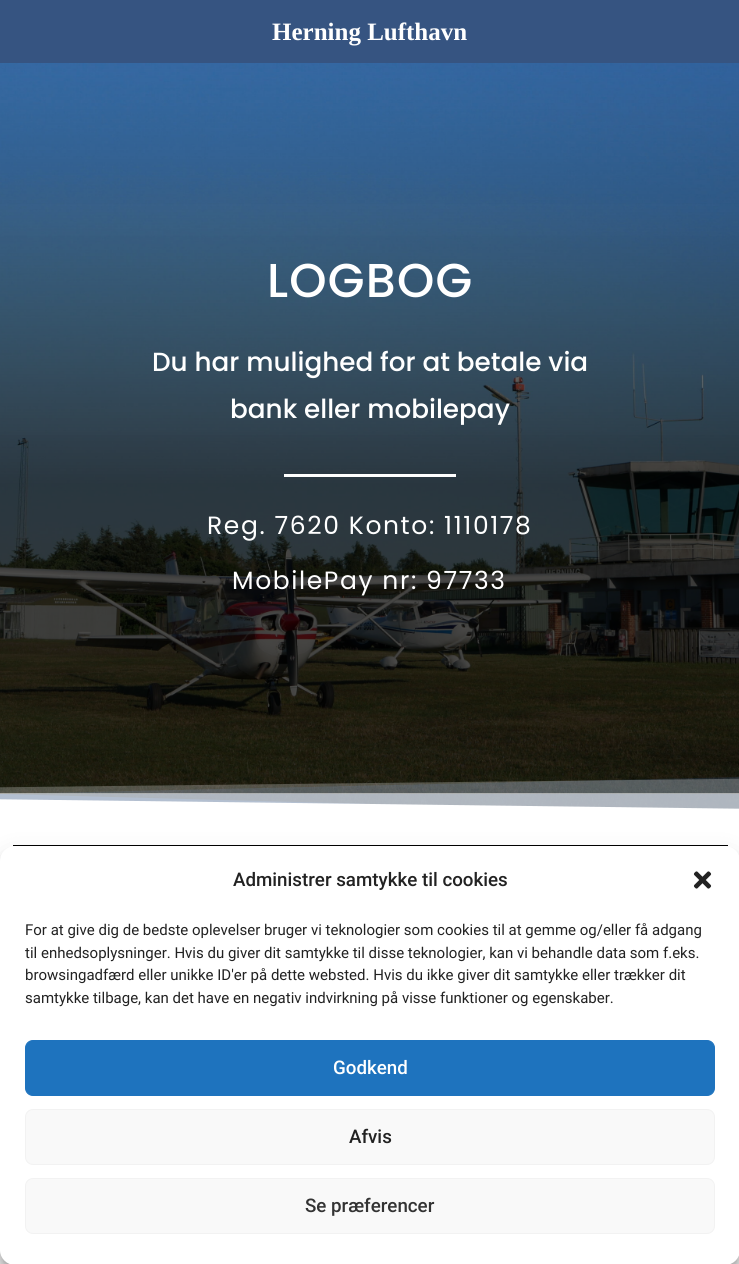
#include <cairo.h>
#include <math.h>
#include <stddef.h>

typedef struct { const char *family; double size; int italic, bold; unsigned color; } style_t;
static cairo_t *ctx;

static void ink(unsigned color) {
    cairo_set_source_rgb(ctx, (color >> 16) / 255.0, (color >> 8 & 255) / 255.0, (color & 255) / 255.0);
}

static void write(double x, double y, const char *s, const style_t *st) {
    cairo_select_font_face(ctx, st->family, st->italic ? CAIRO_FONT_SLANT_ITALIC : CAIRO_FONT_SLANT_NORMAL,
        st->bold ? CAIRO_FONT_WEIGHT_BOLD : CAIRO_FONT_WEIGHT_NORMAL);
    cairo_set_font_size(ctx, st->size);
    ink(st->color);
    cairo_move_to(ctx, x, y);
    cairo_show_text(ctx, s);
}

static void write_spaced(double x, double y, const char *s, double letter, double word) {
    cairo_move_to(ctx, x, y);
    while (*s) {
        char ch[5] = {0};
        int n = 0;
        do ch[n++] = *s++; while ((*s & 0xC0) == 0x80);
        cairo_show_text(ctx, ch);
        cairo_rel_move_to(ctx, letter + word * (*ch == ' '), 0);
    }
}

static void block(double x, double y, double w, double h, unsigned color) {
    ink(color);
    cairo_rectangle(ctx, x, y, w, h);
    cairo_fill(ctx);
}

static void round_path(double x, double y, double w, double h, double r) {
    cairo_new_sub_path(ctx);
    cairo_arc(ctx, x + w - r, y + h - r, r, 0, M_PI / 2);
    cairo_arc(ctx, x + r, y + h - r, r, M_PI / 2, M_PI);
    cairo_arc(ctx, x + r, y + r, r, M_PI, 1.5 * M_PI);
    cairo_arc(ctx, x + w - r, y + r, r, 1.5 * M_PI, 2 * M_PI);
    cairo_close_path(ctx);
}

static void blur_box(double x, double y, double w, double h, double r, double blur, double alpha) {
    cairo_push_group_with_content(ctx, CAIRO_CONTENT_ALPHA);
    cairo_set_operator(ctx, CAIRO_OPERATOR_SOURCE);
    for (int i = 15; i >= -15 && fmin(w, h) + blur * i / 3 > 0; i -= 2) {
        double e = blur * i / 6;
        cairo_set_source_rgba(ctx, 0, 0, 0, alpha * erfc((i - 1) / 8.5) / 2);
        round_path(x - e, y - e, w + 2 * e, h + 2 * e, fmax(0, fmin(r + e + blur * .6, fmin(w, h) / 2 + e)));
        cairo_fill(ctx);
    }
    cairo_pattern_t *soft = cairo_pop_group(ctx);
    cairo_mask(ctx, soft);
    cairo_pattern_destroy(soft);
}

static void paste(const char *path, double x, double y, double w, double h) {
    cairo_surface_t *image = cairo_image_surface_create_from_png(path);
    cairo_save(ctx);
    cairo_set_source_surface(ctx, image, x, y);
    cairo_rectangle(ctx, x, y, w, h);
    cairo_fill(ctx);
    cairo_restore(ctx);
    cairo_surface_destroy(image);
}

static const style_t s1 = {"Liberation Serif", 25, 0, 1, 0xffffff};
static const style_t s2 = {"Poppins Medium", 26.25, 0, 0, 0xffffff};
static const style_t s3 = {"Roboto Medium", 18.75, 0, 0, 0x222222};
static const style_t s4 = {"Roboto", 15, 0, 0, 0x222222};
static const style_t s5 = {"Roboto Medium", 18.75, 0, 0, 0xffffff};
static const style_t s6 = {"Roboto Medium", 18.75, 0, 0, 0x333333};

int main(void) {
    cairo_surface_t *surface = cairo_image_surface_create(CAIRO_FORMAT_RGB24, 739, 1264);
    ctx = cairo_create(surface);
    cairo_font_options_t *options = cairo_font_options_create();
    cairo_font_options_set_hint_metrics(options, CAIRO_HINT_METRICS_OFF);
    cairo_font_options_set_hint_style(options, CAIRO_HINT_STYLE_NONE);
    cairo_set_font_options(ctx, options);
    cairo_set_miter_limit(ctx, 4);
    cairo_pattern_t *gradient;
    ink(0xffffff);
    cairo_paint(ctx);
    block(0, 0, 739, 63, 0x365481);
    write(272, 40, "Herning Lufthavn", &s1);
    paste("pic1.png", 0, 63, 739, 746);
    gradient = cairo_pattern_create_linear(370, 62, 370, 813);
    cairo_pattern_add_color_stop_rgba(gradient, 0, 0.027, 0.027, 0.027, 0.14);
    cairo_pattern_add_color_stop_rgba(gradient, 0.56, 0, 0, 0, 0.7);
    cairo_set_source(ctx, gradient);
    cairo_pattern_destroy(gradient);
    cairo_rectangle(ctx, 0, 63, 739, 746);
    cairo_fill(ctx);
    cairo_select_font_face(ctx, "Poppins Medium", CAIRO_FONT_SLANT_NORMAL, CAIRO_FONT_WEIGHT_NORMAL);
    cairo_set_font_size(ctx, 47.5);
    ink(0xffffff);
    write_spaced(267, 297, "LOGBOG", 1.25, 0);
    write(152, 371, "Du har mulighed for at betale via", &s2);
    write(230, 418, "bank eller mobilepay", &s2);
    block(284, 474, 172, 3, 0xffffff);
    cairo_select_font_face(ctx, "Poppins", CAIRO_FONT_SLANT_NORMAL, CAIRO_FONT_WEIGHT_NORMAL);
    cairo_set_font_size(ctx, 25);
    write_spaced(207, 534, "Reg. 7620 Konto: 1110178", 1.6, 0);
    write_spaced(232, 589, "MobilePay nr: 97733", 1.6, 0);
    ink(0x365481);
    cairo_new_path(ctx);
    cairo_move_to(ctx, 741, 814);
    cairo_line_to(ctx, -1, 814);
    cairo_line_to(ctx, -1, 794);
    cairo_close_path(ctx);
    cairo_fill(ctx);
    cairo_set_source_rgba(ctx, 0.212, 0.329, 0.506, 0.5);
    cairo_rectangle(ctx, 2, 794, 737, 15);
    cairo_fill(ctx);
    cairo_set_source_rgba(ctx, 0.212, 0.329, 0.506, 0.25);
    cairo_new_path(ctx);
    cairo_move_to(ctx, -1, 814);
    cairo_line_to(ctx, 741, 814);
    cairo_line_to(ctx, 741, 777);
    cairo_line_to(ctx, -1, 794);
    cairo_close_path(ctx);
    cairo_fill(ctx);
    ink(0xffffff);
    cairo_new_path(ctx);
    cairo_move_to(ctx, 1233, 815);
    cairo_line_to(ctx, -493, 815);
    cairo_line_to(ctx, -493, 793);
    cairo_close_path(ctx);
    cairo_fill(ctx);
    cairo_set_source_rgba(ctx, 1, 1, 1, 0.5);
    cairo_rectangle(ctx, 0, 793, 739, 16);
    cairo_fill(ctx);
    cairo_set_source_rgba(ctx, 1, 1, 1, 0.25);
    cairo_new_path(ctx);
    cairo_move_to(ctx, -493, 815);
    cairo_line_to(ctx, 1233, 815);
    cairo_line_to(ctx, 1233, 773);
    cairo_line_to(ctx, -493, 793);
    cairo_close_path(ctx);
    cairo_fill(ctx);
    block(13, 845, 715, 1, 0x000000);
    paste("pic2.png", 0, 1250, 739, 14);
    ink(0x000000);
    blur_box(0, 854, 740, 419, 15, 4, 0.23);
    blur_box(0, 859, 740, 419, 15, 12.5, 0.19);
    ink(0xffffff);
    round_path(0, 846, 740, 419, 15);
    cairo_fill(ctx);
    write(233, 886, "Administrer samtykke til cookies", &s3);
    paste("pic3.png", 693, 871, 19, 18);
    write(25, 935, "For at give dig de bedste oplevelser bruger vi teknologier som cookies til at gemme og/eller få adgang", &s4);
    write(25, 958, "til enhedsoplysninger. Hvis du giver dit samtykke til disse teknologier, kan vi behandle data som f.eks.", &s4);
    write(25, 980, "browsingadfærd eller unikke ID'er på dette websted. Hvis du ikke giver dit samtykke eller trækker dit", &s4);
    write(25, 1003, "samtykke tilbage, kan det have en negativ indvirkning på visse funktioner og egenskaber.", &s4);
    ink(0x1e73be);
    round_path(25.5, 1040.5, 689, 55, 7.5);
    cairo_fill_preserve(ctx);
    cairo_set_line_width(ctx, 1);
    cairo_stroke(ctx);
    write(333, 1074, "Godkend", &s5);
    ink(0xf9f9f9);
    round_path(25.5, 1109.5, 689, 55, 7.5);
    cairo_fill_preserve(ctx);
    ink(0xf2f2f2);
    cairo_stroke(ctx);
    write(349, 1143, "Afvis", &s3);
    ink(0xf9f9f9);
    round_path(25.5, 1178.5, 689, 55, 7.5);
    cairo_fill_preserve(ctx);
    ink(0xf2f2f2);
    cairo_stroke(ctx);
    write(305, 1212, "Se præferencer", &s6);
    cairo_surface_write_to_png(surface, "screenshot.png");
    cairo_font_options_destroy(options);
    cairo_destroy(ctx);
    cairo_surface_destroy(surface);
    return 0;
}
